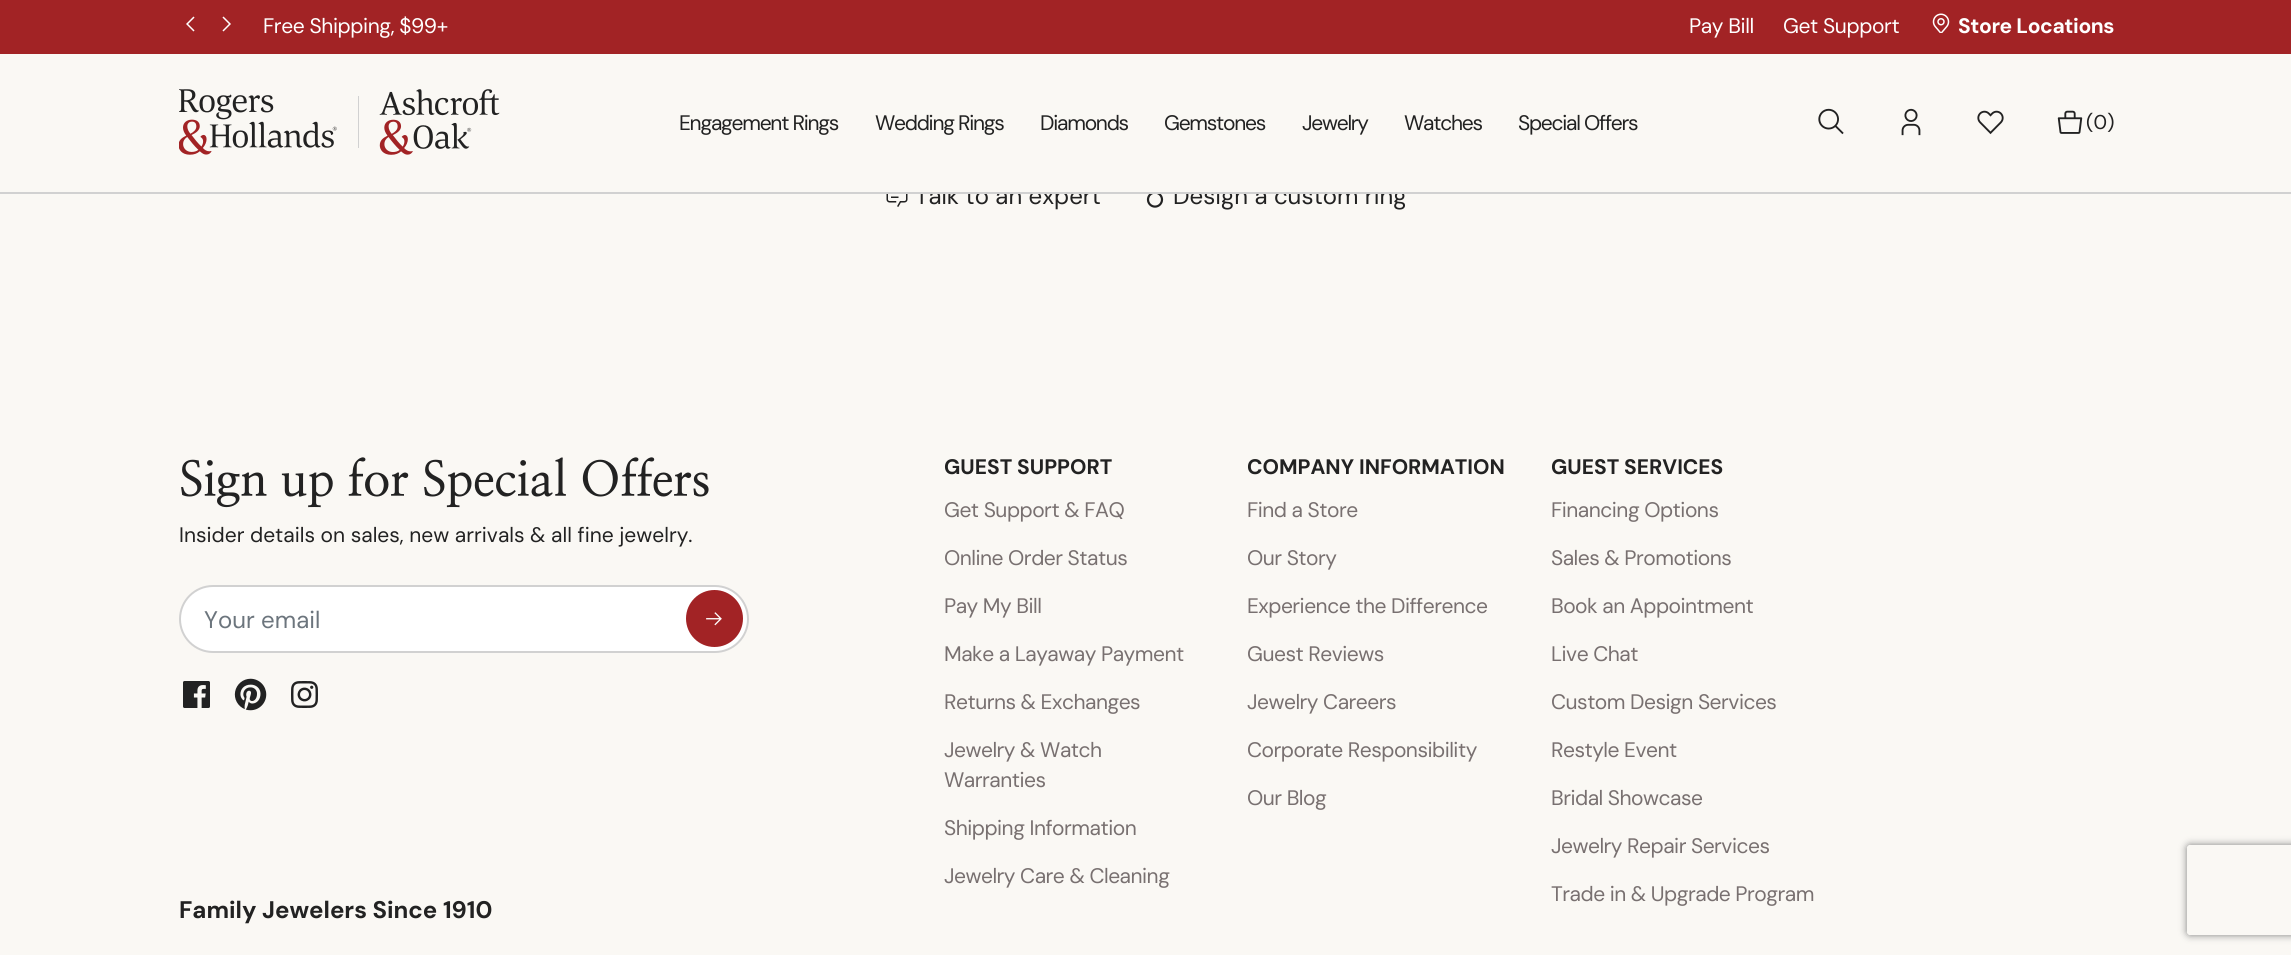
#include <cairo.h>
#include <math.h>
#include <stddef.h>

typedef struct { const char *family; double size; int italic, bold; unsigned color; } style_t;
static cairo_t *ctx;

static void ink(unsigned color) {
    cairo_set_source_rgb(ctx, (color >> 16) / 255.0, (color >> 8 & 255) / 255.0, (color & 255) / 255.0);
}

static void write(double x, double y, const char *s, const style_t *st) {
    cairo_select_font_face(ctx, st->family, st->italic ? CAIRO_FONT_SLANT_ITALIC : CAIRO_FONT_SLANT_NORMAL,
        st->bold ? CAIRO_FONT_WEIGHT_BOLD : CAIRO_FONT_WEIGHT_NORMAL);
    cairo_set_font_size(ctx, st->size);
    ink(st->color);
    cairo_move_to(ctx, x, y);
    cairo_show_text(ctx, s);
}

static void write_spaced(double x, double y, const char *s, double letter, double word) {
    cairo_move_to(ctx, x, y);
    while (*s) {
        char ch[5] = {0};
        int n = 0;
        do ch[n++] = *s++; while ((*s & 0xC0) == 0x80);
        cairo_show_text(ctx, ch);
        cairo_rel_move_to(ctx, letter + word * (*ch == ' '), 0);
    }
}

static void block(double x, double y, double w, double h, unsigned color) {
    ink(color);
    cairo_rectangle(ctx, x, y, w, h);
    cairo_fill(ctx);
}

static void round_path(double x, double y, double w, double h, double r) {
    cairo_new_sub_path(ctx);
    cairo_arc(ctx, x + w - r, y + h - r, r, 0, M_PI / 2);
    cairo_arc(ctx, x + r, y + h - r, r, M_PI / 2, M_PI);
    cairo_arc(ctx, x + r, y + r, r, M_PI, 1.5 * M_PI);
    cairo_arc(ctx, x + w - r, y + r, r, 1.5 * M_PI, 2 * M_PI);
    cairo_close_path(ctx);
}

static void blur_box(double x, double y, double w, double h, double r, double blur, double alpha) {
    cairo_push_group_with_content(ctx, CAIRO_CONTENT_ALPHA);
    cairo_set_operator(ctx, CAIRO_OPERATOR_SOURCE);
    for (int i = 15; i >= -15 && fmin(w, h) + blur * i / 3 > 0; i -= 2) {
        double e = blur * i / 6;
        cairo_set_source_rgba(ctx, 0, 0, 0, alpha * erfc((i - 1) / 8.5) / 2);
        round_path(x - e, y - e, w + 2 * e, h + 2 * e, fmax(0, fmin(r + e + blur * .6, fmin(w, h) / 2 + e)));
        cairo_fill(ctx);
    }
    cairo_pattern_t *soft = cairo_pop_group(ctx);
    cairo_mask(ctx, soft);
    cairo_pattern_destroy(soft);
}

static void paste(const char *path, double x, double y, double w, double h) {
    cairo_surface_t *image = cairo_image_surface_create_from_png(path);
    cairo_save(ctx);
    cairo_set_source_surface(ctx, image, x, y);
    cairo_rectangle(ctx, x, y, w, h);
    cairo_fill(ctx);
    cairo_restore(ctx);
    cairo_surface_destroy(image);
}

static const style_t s1 = {"DM Sans", 24, 0, 0, 0x222222};
static const style_t s2 = {"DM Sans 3", 20, 0, 0, 0x222222};
static const style_t s3 = {"NanumMyeongjo", 48, 0, 1, 0x222222};
static const style_t s4 = {"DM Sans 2", 21, 0, 0, 0x222222};
static const style_t s5 = {"DM Sans", 24, 0, 0, 0x6c757d};
static const style_t s6 = {"DM Sans", 24, 0, 1, 0x222222};
static const style_t s7 = {"DM Sans 2", 21, 0, 1, 0x222222};

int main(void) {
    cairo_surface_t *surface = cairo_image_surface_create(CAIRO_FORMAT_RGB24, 2291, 955);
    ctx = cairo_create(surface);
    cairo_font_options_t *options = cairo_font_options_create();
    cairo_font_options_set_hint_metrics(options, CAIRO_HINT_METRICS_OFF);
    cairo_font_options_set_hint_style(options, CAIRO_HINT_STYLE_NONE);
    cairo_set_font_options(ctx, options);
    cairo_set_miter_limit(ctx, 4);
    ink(0xfaf8f4);
    cairo_paint(ctx);
    write(915, 204, "Talk to an expert", &s1);
    write(1173, 204, "Design a custom ring", &s1);
    block(915, 186, 492, 6, 0xfaf8f4);
    block(0, 192, 2291, 2, 0xd1d1d1);
    block(0, 0, 2291, 54, 0xa22325);
    paste("pic1.png", 186, 16, 9, 16);
    paste("pic2.png", 222, 16, 9, 16);
    cairo_select_font_face(ctx, "DM Sans 2", CAIRO_FONT_SLANT_NORMAL, CAIRO_FONT_WEIGHT_NORMAL);
    cairo_set_font_size(ctx, 21);
    ink(0xffffff);
    write_spaced(263, 33, "Free Shipping, $99+", -0.4, 0);
    write_spaced(1689, 33, "Pay Bill", -0.4, 0);
    write_spaced(1783, 33, "Get Support", -0.4, 0);
    paste("pic3.png", 1932, 13, 18, 20);
    cairo_select_font_face(ctx, "DM Sans 2", CAIRO_FONT_SLANT_NORMAL, CAIRO_FONT_WEIGHT_BOLD);
    write_spaced(1958, 33, "Store Locations", -0.4, 0);
    paste("pic4.png", 179, 89, 321, 66);
    cairo_select_font_face(ctx, "DM Sans 2", CAIRO_FONT_SLANT_NORMAL, CAIRO_FONT_WEIGHT_NORMAL);
    ink(0x222222);
    write_spaced(679, 130, "Engagement Rings", -1.25, 0);
    write_spaced(875, 130, "Wedding Rings", -1.25, 0);
    write_spaced(1040, 130, "Diamonds", -1.25, 0);
    write_spaced(1164, 130, "Gemstones", -1.25, 0);
    write_spaced(1302, 130, "Jewelry", -1.25, 0);
    write_spaced(1404, 130, "Watches", -1.25, 0);
    write_spaced(1518, 130, "Special Offers", -1.25, 0);
    paste("pic5.png", 1818, 108, 26, 27);
    paste("pic6.png", 1901, 108, 20, 28);
    paste("pic7.png", 1977, 110, 27, 25);
    paste("pic8.png", 2057, 110, 26, 24);
    write(2086, 129, "(0)", &s2);
    paste("pic9.png", 886, 194, 22, 13);
    paste("pic10.png", 1146, 194, 18, 14);
    write(179, 496, "Sign up for Special Offers", &s3);
    write(179, 542, "Insider details on sales, new arrivals & all fine jewelry.", &s4);
    ink(0xffffff);
    round_path(180, 586, 568, 66, 33);
    cairo_fill_preserve(ctx);
    ink(0xd1d1d1);
    cairo_stroke(ctx);
    write(204, 628, "Your email", &s5);
    ink(0xa22325);
    cairo_new_path(ctx);
    cairo_arc(ctx, 714.5, 618.5, 28.5, 0, 2 * M_PI);
    cairo_fill(ctx);
    paste("pic11.png", 706, 612, 16, 14);
    paste("pic12.png", 183, 681, 27, 27);
    paste("pic13.png", 234, 678, 33, 33);
    paste("pic14.png", 291, 681, 27, 27);
    write(179, 918, "Family Jewelers Since 1910", &s6);
    write(944, 474, "GUEST SUPPORT", &s7);
    cairo_select_font_face(ctx, "DM Sans 2", CAIRO_FONT_SLANT_NORMAL, CAIRO_FONT_WEIGHT_NORMAL);
    ink(0x787070);
    write_spaced(944, 517, "Get Support & FAQ", -0.5, 0);
    write_spaced(944, 565, "Online Order Status", -0.5, 0);
    write_spaced(944, 613, "Pay My Bill", -0.5, 0);
    write_spaced(944, 661, "Make a Layaway Payment", -0.5, 0);
    write_spaced(944, 709, "Returns & Exchanges", -0.5, 0);
    write_spaced(944, 757, "Jewelry & Watch", -0.5, 0);
    write_spaced(944, 787, "Warranties", -0.5, 0);
    write_spaced(944, 835, "Shipping Information", -0.5, 0);
    write_spaced(944, 883, "Jewelry Care & Cleaning", -0.5, 0);
    write(1247, 474, "COMPANY INFORMATION", &s7);
    cairo_select_font_face(ctx, "DM Sans 2", CAIRO_FONT_SLANT_NORMAL, CAIRO_FONT_WEIGHT_NORMAL);
    ink(0x787070);
    write_spaced(1247, 517, "Find a Store", -0.5, 0);
    write_spaced(1247, 565, "Our Story", -0.5, 0);
    write_spaced(1247, 613, "Experience the Difference", -0.5, 0);
    write_spaced(1247, 661, "Guest Reviews", -0.5, 0);
    write_spaced(1247, 709, "Jewelry Careers", -0.5, 0);
    write_spaced(1247, 757, "Corporate Responsibility", -0.5, 0);
    write_spaced(1247, 805, "Our Blog", -0.5, 0);
    write(1551, 474, "GUEST SERVICES", &s7);
    cairo_select_font_face(ctx, "DM Sans 2", CAIRO_FONT_SLANT_NORMAL, CAIRO_FONT_WEIGHT_NORMAL);
    ink(0x787070);
    write_spaced(1551, 517, "Financing Options", -0.5, 0);
    write_spaced(1551, 565, "Sales & Promotions", -0.5, 0);
    write_spaced(1551, 613, "Book an Appointment", -0.5, 0);
    write_spaced(1551, 661, "Live Chat", -0.5, 0);
    write_spaced(1551, 709, "Custom Design Services", -0.5, 0);
    write_spaced(1551, 757, "Restyle Event", -0.5, 0);
    write_spaced(1551, 805, "Bridal Showcase", -0.5, 0);
    write_spaced(1551, 853, "Jewelry Repair Services", -0.5, 0);
    write_spaced(1551, 901, "Trade in & Upgrade Program", -0.5, 0);
    cairo_save(ctx);
    cairo_set_fill_rule(ctx, CAIRO_FILL_RULE_EVEN_ODD);
    cairo_new_path(ctx);
    cairo_move_to(ctx, 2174, 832);
    cairo_line_to(ctx, 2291, 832);
    cairo_line_to(ctx, 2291, 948);
    cairo_line_to(ctx, 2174, 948);
    cairo_close_path(ctx);
    cairo_move_to(ctx, 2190, 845);
    cairo_line_to(ctx, 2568, 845);
    cairo_curve_to(ctx, 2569.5, 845, 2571, 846.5, 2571, 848);
    cairo_line_to(ctx, 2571, 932);
    cairo_curve_to(ctx, 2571, 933.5, 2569.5, 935, 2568, 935);
    cairo_line_to(ctx, 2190, 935);
    cairo_curve_to(ctx, 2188.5, 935, 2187, 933.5, 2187, 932);
    cairo_line_to(ctx, 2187, 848);
    cairo_curve_to(ctx, 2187, 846.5, 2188.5, 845, 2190, 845);
    cairo_close_path(ctx);
    cairo_clip(ctx);
    ink(0x808080);
    blur_box(2187, 845, 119, 90, 3, 4, 1);
    cairo_restore(ctx);
    cairo_surface_write_to_png(surface, "screenshot.png");
    cairo_font_options_destroy(options);
    cairo_destroy(ctx);
    cairo_surface_destroy(surface);
    return 0;
}
